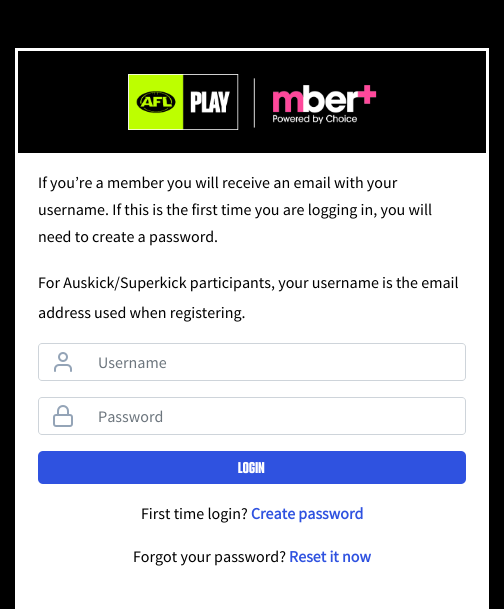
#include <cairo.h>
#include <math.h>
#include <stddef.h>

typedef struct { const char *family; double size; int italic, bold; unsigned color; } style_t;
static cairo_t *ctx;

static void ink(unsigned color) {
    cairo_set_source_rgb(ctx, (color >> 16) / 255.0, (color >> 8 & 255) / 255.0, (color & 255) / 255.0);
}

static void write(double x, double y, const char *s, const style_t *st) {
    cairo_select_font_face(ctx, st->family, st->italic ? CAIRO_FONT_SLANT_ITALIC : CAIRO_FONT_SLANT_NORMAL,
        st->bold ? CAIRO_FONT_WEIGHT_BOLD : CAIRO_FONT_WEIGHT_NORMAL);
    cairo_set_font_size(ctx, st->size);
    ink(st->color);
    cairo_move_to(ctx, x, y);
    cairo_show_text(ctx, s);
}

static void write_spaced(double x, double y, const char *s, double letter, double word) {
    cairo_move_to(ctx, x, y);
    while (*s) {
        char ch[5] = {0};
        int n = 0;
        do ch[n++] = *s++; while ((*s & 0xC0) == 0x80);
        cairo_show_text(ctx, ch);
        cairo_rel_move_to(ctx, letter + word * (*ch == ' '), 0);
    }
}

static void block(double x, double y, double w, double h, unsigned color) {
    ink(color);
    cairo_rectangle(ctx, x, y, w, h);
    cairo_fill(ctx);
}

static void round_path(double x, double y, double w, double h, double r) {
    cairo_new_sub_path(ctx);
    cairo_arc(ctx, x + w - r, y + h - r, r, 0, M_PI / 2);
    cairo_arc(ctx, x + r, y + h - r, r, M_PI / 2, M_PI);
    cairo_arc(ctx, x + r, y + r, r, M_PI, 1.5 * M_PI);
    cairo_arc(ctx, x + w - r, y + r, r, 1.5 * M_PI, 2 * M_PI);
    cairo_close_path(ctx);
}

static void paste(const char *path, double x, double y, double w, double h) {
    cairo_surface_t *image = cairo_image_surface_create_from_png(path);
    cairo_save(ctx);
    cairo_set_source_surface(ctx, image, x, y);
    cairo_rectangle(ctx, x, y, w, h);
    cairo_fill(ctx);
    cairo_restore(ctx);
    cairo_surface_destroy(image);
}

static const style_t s1 = {"Source Sans Pro", 16, 0, 0, 0x000000};
static const style_t s2 = {"Source Sans Pro", 16, 0, 0, 0x6c757d};
static const style_t s3 = {"Source Sans Pro", 16, 0, 1, 0x2f52e0};

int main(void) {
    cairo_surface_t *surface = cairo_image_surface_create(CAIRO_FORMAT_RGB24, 504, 609);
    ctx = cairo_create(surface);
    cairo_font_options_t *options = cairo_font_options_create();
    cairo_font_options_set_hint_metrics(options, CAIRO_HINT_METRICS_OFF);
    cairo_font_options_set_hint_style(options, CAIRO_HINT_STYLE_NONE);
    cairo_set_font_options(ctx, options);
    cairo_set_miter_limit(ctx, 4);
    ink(0x000000);
    cairo_paint(ctx);
    block(15, 48, 474, 561, 0xffffff);
    block(18, 51, 468, 102, 0x000000);
    paste("pic1.png", 128, 74, 249, 56);
    write(38, 188, "If you’re a member you will receive an email with your", &s1);
    write(38, 215, "username. If this is the first time you are logging in, you will", &s1);
    write(38, 242, "need to create a password.", &s1);
    write(38, 288, "For Auskick/Superkick participants, your username is the email", &s1);
    write(38, 318, "address used when registering.", &s1);
    ink(0xced4da);
    cairo_set_fill_rule(ctx, CAIRO_FILL_RULE_EVEN_ODD);
    cairo_new_path(ctx);
    cairo_move_to(ctx, 42, 343);
    cairo_line_to(ctx, 87, 343);
    cairo_line_to(ctx, 87, 381);
    cairo_line_to(ctx, 42, 381);
    cairo_curve_to(ctx, 40, 381, 38, 379, 38, 377);
    cairo_line_to(ctx, 38, 347);
    cairo_curve_to(ctx, 38, 345, 40, 343, 42, 343);
    cairo_close_path(ctx);
    cairo_move_to(ctx, 42, 344);
    cairo_line_to(ctx, 87, 344);
    cairo_line_to(ctx, 87, 380);
    cairo_line_to(ctx, 42, 380);
    cairo_curve_to(ctx, 40, 380, 39, 379, 39, 377);
    cairo_line_to(ctx, 39, 347);
    cairo_curve_to(ctx, 39, 345, 40, 344, 42, 344);
    cairo_close_path(ctx);
    cairo_fill(ctx);
    paste("pic2.png", 54, 352, 18, 20);
    cairo_new_path(ctx);
    cairo_move_to(ctx, 86, 343);
    cairo_line_to(ctx, 462, 343);
    cairo_curve_to(ctx, 464, 343, 466, 345, 466, 347);
    cairo_line_to(ctx, 466, 377);
    cairo_curve_to(ctx, 466, 379, 464, 381, 462, 381);
    cairo_line_to(ctx, 86, 381);
    cairo_close_path(ctx);
    cairo_move_to(ctx, 86, 344);
    cairo_line_to(ctx, 462, 344);
    cairo_curve_to(ctx, 464, 344, 465, 345, 465, 347);
    cairo_line_to(ctx, 465, 377);
    cairo_curve_to(ctx, 465, 379, 464, 380, 462, 380);
    cairo_line_to(ctx, 86, 380);
    cairo_close_path(ctx);
    cairo_fill(ctx);
    write(98, 368, "Username", &s2);
    ink(0xced4da);
    cairo_new_path(ctx);
    cairo_move_to(ctx, 42, 397);
    cairo_line_to(ctx, 87, 397);
    cairo_line_to(ctx, 87, 435);
    cairo_line_to(ctx, 42, 435);
    cairo_curve_to(ctx, 40, 435, 38, 433, 38, 431);
    cairo_line_to(ctx, 38, 401);
    cairo_curve_to(ctx, 38, 399, 40, 397, 42, 397);
    cairo_close_path(ctx);
    cairo_move_to(ctx, 42, 398);
    cairo_line_to(ctx, 87, 398);
    cairo_line_to(ctx, 87, 434);
    cairo_line_to(ctx, 42, 434);
    cairo_curve_to(ctx, 40, 434, 39, 433, 39, 431);
    cairo_line_to(ctx, 39, 401);
    cairo_curve_to(ctx, 39, 399, 40, 398, 42, 398);
    cairo_close_path(ctx);
    cairo_fill(ctx);
    paste("pic3.png", 53, 405, 20, 22);
    cairo_new_path(ctx);
    cairo_move_to(ctx, 86, 397);
    cairo_line_to(ctx, 462, 397);
    cairo_curve_to(ctx, 464, 397, 466, 399, 466, 401);
    cairo_line_to(ctx, 466, 431);
    cairo_curve_to(ctx, 466, 433, 464, 435, 462, 435);
    cairo_line_to(ctx, 86, 435);
    cairo_close_path(ctx);
    cairo_move_to(ctx, 86, 398);
    cairo_line_to(ctx, 462, 398);
    cairo_curve_to(ctx, 464, 398, 465, 399, 465, 401);
    cairo_line_to(ctx, 465, 431);
    cairo_curve_to(ctx, 465, 433, 464, 434, 462, 434);
    cairo_line_to(ctx, 86, 434);
    cairo_close_path(ctx);
    cairo_fill(ctx);
    write(98, 422, "Password", &s2);
    ink(0x2f52e0);
    round_path(38, 451, 428, 33, 5);
    cairo_fill(ctx);
    cairo_select_font_face(ctx, "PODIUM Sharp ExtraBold", CAIRO_FONT_SLANT_NORMAL, CAIRO_FONT_WEIGHT_NORMAL);
    cairo_set_font_size(ctx, 14);
    ink(0xffffff);
    write_spaced(238, 473, "LOGIN", 0.25, 0);
    write(141, 519, "First time login?", &s1);
    write(251, 519, "Create password", &s3);
    write(133, 562, "Forgot your password?", &s1);
    write(289, 562, "Reset it now", &s3);
    cairo_surface_write_to_png(surface, "screenshot.png");
    cairo_font_options_destroy(options);
    cairo_destroy(ctx);
    cairo_surface_destroy(surface);
    return 0;
}
